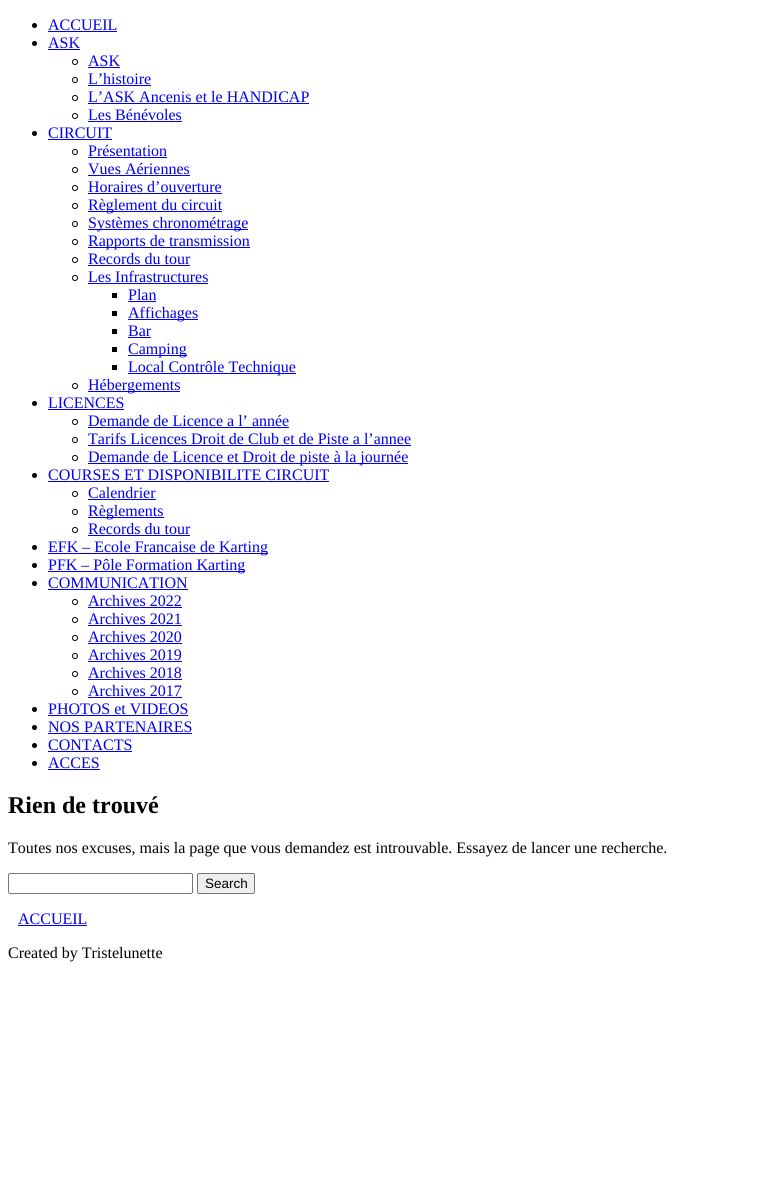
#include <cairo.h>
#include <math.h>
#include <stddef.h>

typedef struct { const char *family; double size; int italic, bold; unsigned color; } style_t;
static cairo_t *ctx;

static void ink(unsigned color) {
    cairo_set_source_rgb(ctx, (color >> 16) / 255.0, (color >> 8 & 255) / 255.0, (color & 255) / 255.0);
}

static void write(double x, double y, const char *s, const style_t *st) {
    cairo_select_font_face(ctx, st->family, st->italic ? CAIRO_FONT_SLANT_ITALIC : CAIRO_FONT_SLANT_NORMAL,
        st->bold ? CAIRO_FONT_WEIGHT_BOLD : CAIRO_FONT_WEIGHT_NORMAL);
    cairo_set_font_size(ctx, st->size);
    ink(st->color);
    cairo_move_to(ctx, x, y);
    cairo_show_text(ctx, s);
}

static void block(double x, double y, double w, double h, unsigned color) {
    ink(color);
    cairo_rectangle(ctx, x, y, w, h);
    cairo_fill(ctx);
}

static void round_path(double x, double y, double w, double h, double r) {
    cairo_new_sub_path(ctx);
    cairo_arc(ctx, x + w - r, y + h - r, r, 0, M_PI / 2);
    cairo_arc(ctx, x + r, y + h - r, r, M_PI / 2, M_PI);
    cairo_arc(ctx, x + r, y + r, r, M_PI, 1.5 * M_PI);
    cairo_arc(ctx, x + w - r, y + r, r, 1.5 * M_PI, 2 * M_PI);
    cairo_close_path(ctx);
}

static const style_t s1 = {"Liberation Serif", 16, 0, 0, 0x0000ee};
static const style_t s2 = {"Liberation Serif", 24, 0, 1, 0x000000};
static const style_t s3 = {"Liberation Serif", 16, 0, 0, 0x000000};
static const style_t s4 = {"Liberation Sans", 13.5, 0, 0, 0x000000};

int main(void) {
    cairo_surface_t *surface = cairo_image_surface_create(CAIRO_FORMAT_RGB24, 765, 1180);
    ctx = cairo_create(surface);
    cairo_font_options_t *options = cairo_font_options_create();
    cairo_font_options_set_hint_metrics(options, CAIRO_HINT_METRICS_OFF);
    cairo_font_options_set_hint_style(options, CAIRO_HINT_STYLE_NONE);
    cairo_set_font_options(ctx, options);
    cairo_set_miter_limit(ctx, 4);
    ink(0xffffff);
    cairo_paint(ctx);
    ink(0x000000);
    cairo_arc(ctx, 34.5, 25.5, 2.5, 0, 2 * M_PI);
    cairo_fill(ctx);
    write(48, 30, "ACCUEIL", &s1);
    block(48, 31, 69, 1, 0x0000ee);
    ink(0x000000);
    cairo_new_path(ctx);
    cairo_arc(ctx, 34.5, 43.5, 2.5, 0, 2 * M_PI);
    cairo_fill(ctx);
    write(48, 48, "ASK", &s1);
    block(48, 49, 32, 1, 0x0000ee);
    cairo_new_path(ctx);
    cairo_arc(ctx, 75, 62, 2.5, 0, 2 * M_PI);
    ink(0x000000);
    cairo_set_line_width(ctx, 1);
    cairo_stroke(ctx);
    write(88, 66, "ASK", &s1);
    block(88, 67, 32, 1, 0x0000ee);
    cairo_new_path(ctx);
    cairo_arc(ctx, 75, 80, 2.5, 0, 2 * M_PI);
    ink(0x000000);
    cairo_stroke(ctx);
    write(88, 84, "L’histoire", &s1);
    block(88, 85, 63, 1, 0x0000ee);
    cairo_new_path(ctx);
    cairo_arc(ctx, 75, 98, 2.5, 0, 2 * M_PI);
    ink(0x000000);
    cairo_stroke(ctx);
    write(88, 102, "L’ASK Ancenis et le HANDICAP", &s1);
    block(88, 103, 221, 1, 0x0000ee);
    cairo_new_path(ctx);
    cairo_arc(ctx, 75, 116, 2.5, 0, 2 * M_PI);
    ink(0x000000);
    cairo_stroke(ctx);
    write(88, 120, "Les Bénévoles", &s1);
    block(88, 121, 94, 1, 0x0000ee);
    ink(0x000000);
    cairo_new_path(ctx);
    cairo_arc(ctx, 34.5, 133.5, 2.5, 0, 2 * M_PI);
    cairo_fill(ctx);
    write(48, 138, "CIRCUIT", &s1);
    block(48, 139, 64, 1, 0x0000ee);
    cairo_new_path(ctx);
    cairo_arc(ctx, 75, 152, 2.5, 0, 2 * M_PI);
    ink(0x000000);
    cairo_stroke(ctx);
    write(88, 156, "Présentation", &s1);
    block(88, 157, 79, 1, 0x0000ee);
    cairo_new_path(ctx);
    cairo_arc(ctx, 75, 170, 2.5, 0, 2 * M_PI);
    ink(0x000000);
    cairo_stroke(ctx);
    write(88, 174, "Vues Aériennes", &s1);
    block(88, 175, 102, 1, 0x0000ee);
    cairo_new_path(ctx);
    cairo_arc(ctx, 75, 188, 2.5, 0, 2 * M_PI);
    ink(0x000000);
    cairo_stroke(ctx);
    write(88, 192, "Horaires d’ouverture", &s1);
    block(88, 193, 134, 1, 0x0000ee);
    cairo_new_path(ctx);
    cairo_arc(ctx, 75, 206, 2.5, 0, 2 * M_PI);
    ink(0x000000);
    cairo_stroke(ctx);
    block(88, 211, 134, 1, 0x0000ee);
    write(88, 210, "Règlement du circuit", &s1);
    cairo_new_path(ctx);
    cairo_arc(ctx, 75, 224, 2.5, 0, 2 * M_PI);
    ink(0x000000);
    cairo_stroke(ctx);
    block(88, 229, 160, 1, 0x0000ee);
    write(88, 228, "Systèmes chronométrage", &s1);
    cairo_new_path(ctx);
    cairo_arc(ctx, 75, 242, 2.5, 0, 2 * M_PI);
    ink(0x000000);
    cairo_stroke(ctx);
    block(88, 247, 162, 1, 0x0000ee);
    write(88, 246, "Rapports de transmission", &s1);
    cairo_new_path(ctx);
    cairo_arc(ctx, 75, 260, 2.5, 0, 2 * M_PI);
    ink(0x000000);
    cairo_stroke(ctx);
    write(88, 264, "Records du tour", &s1);
    block(88, 265, 102, 1, 0x0000ee);
    cairo_new_path(ctx);
    cairo_arc(ctx, 75, 278, 2.5, 0, 2 * M_PI);
    ink(0x000000);
    cairo_stroke(ctx);
    write(88, 282, "Les Infrastructures", &s1);
    block(88, 283, 120, 1, 0x0000ee);
    block(112, 293, 5, 5, 0x000000);
    write(128, 300, "Plan", &s1);
    block(128, 301, 28, 1, 0x0000ee);
    block(112, 311, 5, 5, 0x000000);
    block(128, 319, 70, 1, 0x0000ee);
    write(128, 318, "Affichages", &s1);
    block(112, 329, 5, 5, 0x000000);
    write(128, 336, "Bar", &s1);
    block(128, 337, 23, 1, 0x0000ee);
    block(112, 347, 5, 5, 0x000000);
    block(128, 355, 59, 1, 0x0000ee);
    write(128, 354, "Camping", &s1);
    block(112, 365, 5, 5, 0x000000);
    block(128, 373, 168, 1, 0x0000ee);
    write(128, 372, "Local Contrôle Technique", &s1);
    cairo_new_path(ctx);
    cairo_arc(ctx, 75, 386, 2.5, 0, 2 * M_PI);
    ink(0x000000);
    cairo_stroke(ctx);
    block(88, 391, 92, 1, 0x0000ee);
    write(88, 390, "Hébergements", &s1);
    ink(0x000000);
    cairo_new_path(ctx);
    cairo_arc(ctx, 34.5, 403.5, 2.5, 0, 2 * M_PI);
    cairo_fill(ctx);
    write(48, 408, "LICENCES", &s1);
    block(48, 409, 76, 1, 0x0000ee);
    cairo_new_path(ctx);
    cairo_arc(ctx, 75, 422, 2.5, 0, 2 * M_PI);
    ink(0x000000);
    cairo_stroke(ctx);
    write(88, 426, "Demande de Licence a l’ année", &s1);
    block(88, 427, 201, 1, 0x0000ee);
    cairo_new_path(ctx);
    cairo_arc(ctx, 75, 440, 2.5, 0, 2 * M_PI);
    ink(0x000000);
    cairo_stroke(ctx);
    write(88, 444, "Tarifs Licences Droit de Club et de Piste a l’annee", &s1);
    block(88, 445, 323, 1, 0x0000ee);
    cairo_new_path(ctx);
    cairo_arc(ctx, 75, 458, 2.5, 0, 2 * M_PI);
    ink(0x000000);
    cairo_stroke(ctx);
    block(88, 463, 320, 1, 0x0000ee);
    write(88, 462, "Demande de Licence et Droit de piste à la journée", &s1);
    ink(0x000000);
    cairo_new_path(ctx);
    cairo_arc(ctx, 34.5, 475.5, 2.5, 0, 2 * M_PI);
    cairo_fill(ctx);
    write(48, 480, "COURSES ET DISPONIBILITE CIRCUIT", &s1);
    block(48, 481, 281, 1, 0x0000ee);
    cairo_new_path(ctx);
    cairo_arc(ctx, 75, 494, 2.5, 0, 2 * M_PI);
    ink(0x000000);
    cairo_stroke(ctx);
    write(88, 498, "Calendrier", &s1);
    block(88, 499, 68, 1, 0x0000ee);
    cairo_new_path(ctx);
    cairo_arc(ctx, 75, 512, 2.5, 0, 2 * M_PI);
    ink(0x000000);
    cairo_stroke(ctx);
    block(88, 517, 76, 1, 0x0000ee);
    write(88, 516, "Règlements", &s1);
    cairo_new_path(ctx);
    cairo_arc(ctx, 75, 530, 2.5, 0, 2 * M_PI);
    ink(0x000000);
    cairo_stroke(ctx);
    write(88, 534, "Records du tour", &s1);
    block(88, 535, 102, 1, 0x0000ee);
    ink(0x000000);
    cairo_new_path(ctx);
    cairo_arc(ctx, 34.5, 547.5, 2.5, 0, 2 * M_PI);
    cairo_fill(ctx);
    block(48, 553, 220, 1, 0x0000ee);
    write(48, 552, "EFK – Ecole Francaise de Karting", &s1);
    ink(0x000000);
    cairo_new_path(ctx);
    cairo_arc(ctx, 34.5, 565.5, 2.5, 0, 2 * M_PI);
    cairo_fill(ctx);
    block(48, 571, 197, 1, 0x0000ee);
    write(48, 570, "PFK – Pôle Formation Karting", &s1);
    ink(0x000000);
    cairo_new_path(ctx);
    cairo_arc(ctx, 34.5, 583.5, 2.5, 0, 2 * M_PI);
    cairo_fill(ctx);
    write(48, 588, "COMMUNICATION", &s1);
    block(48, 589, 140, 1, 0x0000ee);
    cairo_new_path(ctx);
    cairo_arc(ctx, 75, 602, 2.5, 0, 2 * M_PI);
    ink(0x000000);
    cairo_stroke(ctx);
    write(88, 606, "Archives 2022", &s1);
    block(88, 607, 94, 1, 0x0000ee);
    cairo_new_path(ctx);
    cairo_arc(ctx, 75, 620, 2.5, 0, 2 * M_PI);
    ink(0x000000);
    cairo_stroke(ctx);
    write(88, 624, "Archives 2021", &s1);
    block(88, 625, 94, 1, 0x0000ee);
    cairo_new_path(ctx);
    cairo_arc(ctx, 75, 638, 2.5, 0, 2 * M_PI);
    ink(0x000000);
    cairo_stroke(ctx);
    write(88, 642, "Archives 2020", &s1);
    block(88, 643, 94, 1, 0x0000ee);
    cairo_new_path(ctx);
    cairo_arc(ctx, 75, 656, 2.5, 0, 2 * M_PI);
    ink(0x000000);
    cairo_stroke(ctx);
    write(88, 660, "Archives 2019", &s1);
    block(88, 661, 94, 1, 0x0000ee);
    cairo_new_path(ctx);
    cairo_arc(ctx, 75, 674, 2.5, 0, 2 * M_PI);
    ink(0x000000);
    cairo_stroke(ctx);
    write(88, 678, "Archives 2018", &s1);
    block(88, 679, 94, 1, 0x0000ee);
    cairo_new_path(ctx);
    cairo_arc(ctx, 75, 692, 2.5, 0, 2 * M_PI);
    ink(0x000000);
    cairo_stroke(ctx);
    write(88, 696, "Archives 2017", &s1);
    block(88, 697, 94, 1, 0x0000ee);
    ink(0x000000);
    cairo_new_path(ctx);
    cairo_arc(ctx, 34.5, 709.5, 2.5, 0, 2 * M_PI);
    cairo_fill(ctx);
    write(48, 714, "PHOTOS et VIDEOS", &s1);
    block(48, 715, 140, 1, 0x0000ee);
    ink(0x000000);
    cairo_new_path(ctx);
    cairo_arc(ctx, 34.5, 727.5, 2.5, 0, 2 * M_PI);
    cairo_fill(ctx);
    write(48, 732, "NOS PARTENAIRES", &s1);
    block(48, 733, 144, 1, 0x0000ee);
    ink(0x000000);
    cairo_new_path(ctx);
    cairo_arc(ctx, 34.5, 745.5, 2.5, 0, 2 * M_PI);
    cairo_fill(ctx);
    write(48, 750, "CONTACTS", &s1);
    block(48, 751, 84, 1, 0x0000ee);
    ink(0x000000);
    cairo_new_path(ctx);
    cairo_arc(ctx, 34.5, 763.5, 2.5, 0, 2 * M_PI);
    cairo_fill(ctx);
    write(48, 768, "ACCES", &s1);
    block(48, 769, 52, 1, 0x0000ee);
    write(8, 813, "Rien de trouvé", &s2);
    write(8, 853, "Toutes nos excuses, mais la page que vous demandez est introuvable. Essayez de lancer une recherche.", &s3);
    round_path(8.5, 873.5, 184, 20, 1.5);
    ink(0x767676);
    cairo_stroke(ctx);
    ink(0xefefef);
    round_path(197.5, 873.5, 57, 20, 1.5);
    cairo_fill_preserve(ctx);
    ink(0x767676);
    cairo_stroke(ctx);
    write(205, 888, "Search", &s4);
    write(18, 924, "ACCUEIL", &s1);
    block(18, 925, 69, 1, 0x0000ee);
    write(8, 958, "Created by Tristelunette", &s3);
    cairo_surface_write_to_png(surface, "screenshot.png");
    cairo_font_options_destroy(options);
    cairo_destroy(ctx);
    cairo_surface_destroy(surface);
    return 0;
}
